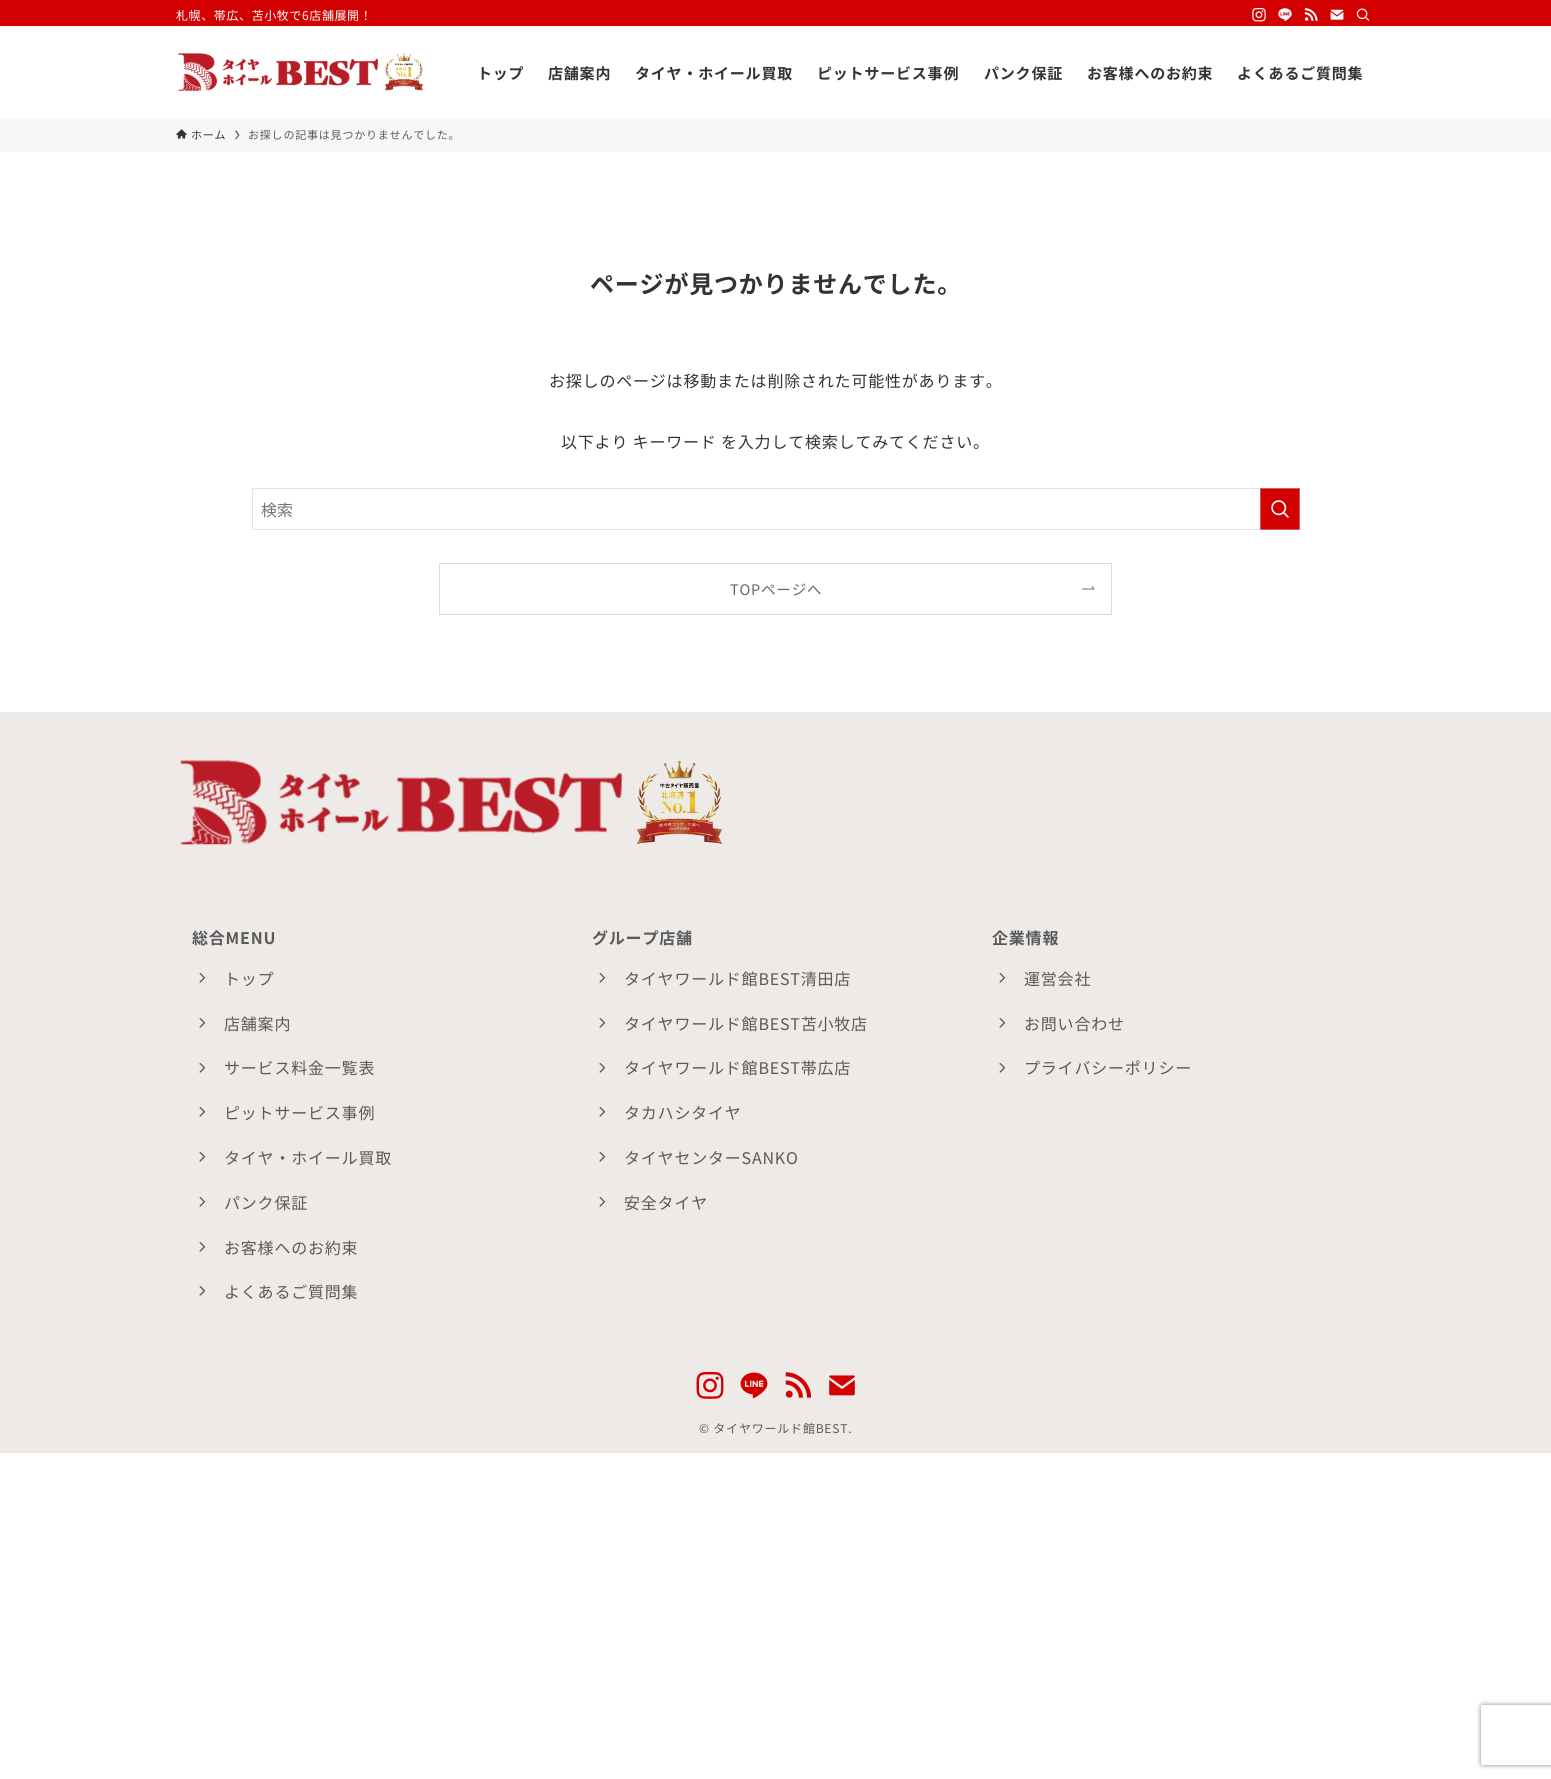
#include <cairo.h>
#include <math.h>
#include <stddef.h>

typedef struct { const char *family; double size; int italic, bold; unsigned color; } style_t;
static cairo_t *ctx;

static void ink(unsigned color) {
    cairo_set_source_rgb(ctx, (color >> 16) / 255.0, (color >> 8 & 255) / 255.0, (color & 255) / 255.0);
}

static void write(double x, double y, const char *s, const style_t *st) {
    cairo_select_font_face(ctx, st->family, st->italic ? CAIRO_FONT_SLANT_ITALIC : CAIRO_FONT_SLANT_NORMAL,
        st->bold ? CAIRO_FONT_WEIGHT_BOLD : CAIRO_FONT_WEIGHT_NORMAL);
    cairo_set_font_size(ctx, st->size);
    ink(st->color);
    cairo_move_to(ctx, x, y);
    cairo_show_text(ctx, s);
}

static void write_spaced(double x, double y, const char *s, double letter, double word) {
    cairo_move_to(ctx, x, y);
    while (*s) {
        char ch[5] = {0};
        int n = 0;
        do ch[n++] = *s++; while ((*s & 0xC0) == 0x80);
        cairo_show_text(ctx, ch);
        cairo_rel_move_to(ctx, letter + word * (*ch == ' '), 0);
    }
}

static void block(double x, double y, double w, double h, unsigned color) {
    ink(color);
    cairo_rectangle(ctx, x, y, w, h);
    cairo_fill(ctx);
}

static void round_path(double x, double y, double w, double h, double r) {
    cairo_new_sub_path(ctx);
    cairo_arc(ctx, x + w - r, y + h - r, r, 0, M_PI / 2);
    cairo_arc(ctx, x + r, y + h - r, r, M_PI / 2, M_PI);
    cairo_arc(ctx, x + r, y + r, r, M_PI, 1.5 * M_PI);
    cairo_arc(ctx, x + w - r, y + r, r, 1.5 * M_PI, 2 * M_PI);
    cairo_close_path(ctx);
}

static void blur_box(double x, double y, double w, double h, double r, double blur, double alpha) {
    cairo_push_group_with_content(ctx, CAIRO_CONTENT_ALPHA);
    cairo_set_operator(ctx, CAIRO_OPERATOR_SOURCE);
    for (int i = 15; i >= -15 && fmin(w, h) + blur * i / 3 > 0; i -= 2) {
        double e = blur * i / 6;
        cairo_set_source_rgba(ctx, 0, 0, 0, alpha * erfc((i - 1) / 8.5) / 2);
        round_path(x - e, y - e, w + 2 * e, h + 2 * e, fmax(0, fmin(r + e + blur * .6, fmin(w, h) / 2 + e)));
        cairo_fill(ctx);
    }
    cairo_pattern_t *soft = cairo_pop_group(ctx);
    cairo_mask(ctx, soft);
    cairo_pattern_destroy(soft);
}

static void paste(const char *path, double x, double y, double w, double h) {
    cairo_surface_t *image = cairo_image_surface_create_from_png(path);
    cairo_save(ctx);
    cairo_set_source_surface(ctx, image, x, y);
    cairo_rectangle(ctx, x, y, w, h);
    cairo_fill(ctx);
    cairo_restore(ctx);
    cairo_surface_destroy(image);
}

static const style_t s1 = {"Noto Sans JP", 16, 0, 0, 0x757575};

int main(void) {
    cairo_surface_t *surface = cairo_image_surface_create(CAIRO_FORMAT_RGB24, 1551, 1779);
    ctx = cairo_create(surface);
    cairo_font_options_t *options = cairo_font_options_create();
    cairo_font_options_set_hint_metrics(options, CAIRO_HINT_METRICS_OFF);
    cairo_font_options_set_hint_style(options, CAIRO_HINT_STYLE_NONE);
    cairo_set_font_options(ctx, options);
    cairo_set_miter_limit(ctx, 4);
    ink(0xffffff);
    cairo_paint(ctx);
    block(0, 0, 1551, 26, 0xd20000);
    cairo_select_font_face(ctx, "Noto Sans JP", CAIRO_FONT_SLANT_NORMAL, CAIRO_FONT_WEIGHT_NORMAL);
    cairo_set_font_size(ctx, 12);
    ink(0xffffff);
    write_spaced(176, 20, "札幌、帯広、苫小牧で6店舗展開！", 0.6, 0);
    paste("pic1.png", 1252, 8, 14, 14);
    paste("pic2.png", 1278, 8, 14, 14);
    paste("pic3.png", 1304, 8, 14, 13);
    paste("pic4.png", 1330, 9, 14, 11);
    paste("pic5.png", 1356, 8, 14, 13);
    paste("pic6.png", 178, 53, 246, 38);
    cairo_select_font_face(ctx, "Noto Sans JP", CAIRO_FONT_SLANT_NORMAL, CAIRO_FONT_WEIGHT_BOLD);
    cairo_set_font_size(ctx, 15);
    ink(0x333333);
    write_spaced(477, 79, "トップ", 0.8, 0);
    write_spaced(548, 79, "店舗案内", 0.8, 0);
    write_spaced(635, 79, "タイヤ・ホイール買取", 0.8, 0);
    write_spaced(817, 79, "ピットサービス事例", 0.8, 0);
    write_spaced(984, 79, "パンク保証", 0.8, 0);
    write_spaced(1087, 79, "お客様へのお約束", 0.8, 0);
    write_spaced(1237, 79, "よくあるご質問集", 0.8, 0);
    block(0, 118, 1551, 34, 0xf7f7f7);
    paste("pic7.png", 176, 129, 11, 10);
    cairo_select_font_face(ctx, "Noto Sans JP", CAIRO_FONT_SLANT_NORMAL, CAIRO_FONT_WEIGHT_NORMAL);
    cairo_set_font_size(ctx, 11);
    ink(0x333333);
    write_spaced(191, 139, "ホーム", 0.8, 0);
    ink(0x5a5a5a);
    cairo_new_path(ctx);
    cairo_move_to(ctx, 236.5, 130.5);
    cairo_line_to(ctx, 235, 131);
    cairo_line_to(ctx, 238, 135);
    cairo_line_to(ctx, 235, 139);
    cairo_line_to(ctx, 236.5, 139);
    cairo_line_to(ctx, 239.5, 135);
    cairo_close_path(ctx);
    cairo_fill(ctx);
    write_spaced(248, 139, "お探しの記事は見つかりませんでした。", 0.8, 0);
    cairo_select_font_face(ctx, "Noto Sans JP", CAIRO_FONT_SLANT_NORMAL, CAIRO_FONT_WEIGHT_BOLD);
    cairo_set_font_size(ctx, 24);
    ink(0x333333);
    write_spaced(590, 293, "ページが見つかりませんでした。", 0.8, 0);
    cairo_select_font_face(ctx, "Noto Sans JP", CAIRO_FONT_SLANT_NORMAL, CAIRO_FONT_WEIGHT_NORMAL);
    cairo_set_font_size(ctx, 16);
    write_spaced(549, 387, "お探しのページは移動または削除された可能性があります。", 0.8, 0);
    write_spaced(561, 448, "以下より キーワード を入力して検索してみてください。", 0.8, 0);
    cairo_rectangle(ctx, 252.5, 488.5, 1047, 41);
    ink(0xe3e3e3);
    cairo_set_line_width(ctx, 1);
    cairo_stroke(ctx);
    write(261, 516, "検索", &s1);
    ink(0xd20000);
    cairo_rectangle(ctx, 1260.5, 488.5, 39, 41);
    cairo_fill_preserve(ctx);
    ink(0xcd6464);
    cairo_stroke(ctx);
    paste("pic8.png", 1271, 500, 18, 18);
    cairo_rectangle(ctx, 439.5, 563.5, 672, 51);
    ink(0xdcdcdc);
    cairo_stroke(ctx);
    cairo_set_font_size(ctx, 14.5);
    ink(0x666666);
    write_spaced(730, 595, "TOPページへ", 0.8, 0);
    paste("pic9.png", 1082, 586, 13, 4);
    block(0, 712, 1551, 741, 0xedeae8);
    paste("pic10.png", 180, 760, 543, 85);
    cairo_select_font_face(ctx, "Noto Sans JP", CAIRO_FONT_SLANT_NORMAL, CAIRO_FONT_WEIGHT_BOLD);
    cairo_set_font_size(ctx, 16);
    ink(0x5a5a5a);
    write_spaced(192, 944, "総合MENU", 0.8, 0);
    paste("pic11.png", 199, 973, 7, 10);
    cairo_select_font_face(ctx, "Noto Sans JP", CAIRO_FONT_SLANT_NORMAL, CAIRO_FONT_WEIGHT_NORMAL);
    write_spaced(224, 985, "トップ", 0.8, 0);
    paste("pic11.png", 199, 1018, 7, 10);
    write_spaced(224, 1030, "店舗案内", 0.8, 0);
    paste("pic11.png", 199, 1063, 7, 10);
    write_spaced(224, 1074, "サービス料金一覧表", 0.8, 0);
    paste("pic11.png", 199, 1107, 7, 10);
    write_spaced(224, 1119, "ピットサービス事例", 0.8, 0);
    paste("pic11.png", 199, 1152, 7, 10);
    write_spaced(224, 1164, "タイヤ・ホイール買取", 0.8, 0);
    paste("pic11.png", 199, 1197, 7, 10);
    write_spaced(224, 1209, "パンク保証", 0.8, 0);
    paste("pic11.png", 199, 1242, 7, 10);
    write_spaced(224, 1254, "お客様へのお約束", 0.8, 0);
    paste("pic11.png", 199, 1286, 7, 10);
    write_spaced(224, 1298, "よくあるご質問集", 0.8, 0);
    cairo_select_font_face(ctx, "Noto Sans JP", CAIRO_FONT_SLANT_NORMAL, CAIRO_FONT_WEIGHT_BOLD);
    write_spaced(592, 944, "グループ店舗", 0.8, 0);
    paste("pic11.png", 599, 973, 7, 10);
    cairo_select_font_face(ctx, "Noto Sans JP", CAIRO_FONT_SLANT_NORMAL, CAIRO_FONT_WEIGHT_NORMAL);
    write_spaced(624, 985, "タイヤワールド館BEST清田店", 0.8, 0);
    paste("pic11.png", 599, 1018, 7, 10);
    write_spaced(624, 1030, "タイヤワールド館BEST苫小牧店", 0.8, 0);
    paste("pic11.png", 599, 1063, 7, 10);
    write_spaced(624, 1074, "タイヤワールド館BEST帯広店", 0.8, 0);
    paste("pic11.png", 599, 1107, 7, 10);
    write_spaced(624, 1119, "タカハシタイヤ", 0.8, 0);
    paste("pic11.png", 599, 1152, 7, 10);
    write_spaced(624, 1164, "タイヤセンターSANKO", 0.8, 0);
    paste("pic11.png", 599, 1197, 7, 10);
    write_spaced(624, 1209, "安全タイヤ", 0.8, 0);
    cairo_select_font_face(ctx, "Noto Sans JP", CAIRO_FONT_SLANT_NORMAL, CAIRO_FONT_WEIGHT_BOLD);
    write_spaced(992, 944, "企業情報", 0.8, 0);
    paste("pic11.png", 999, 973, 7, 10);
    cairo_select_font_face(ctx, "Noto Sans JP", CAIRO_FONT_SLANT_NORMAL, CAIRO_FONT_WEIGHT_NORMAL);
    write_spaced(1024, 985, "運営会社", 0.8, 0);
    paste("pic11.png", 999, 1018, 7, 10);
    write_spaced(1024, 1030, "お問い合わせ", 0.8, 0);
    paste("pic11.png", 999, 1063, 7, 10);
    write_spaced(1024, 1074, "プライバシーポリシー", 0.8, 0);
    paste("pic12.png", 696, 1372, 28, 27);
    paste("pic13.png", 740, 1372, 28, 27);
    paste("pic14.png", 785, 1372, 27, 26);
    paste("pic15.png", 829, 1375, 26, 21);
    cairo_set_font_size(ctx, 12);
    write_spaced(699, 1433, "© タイヤワールド館BEST.", 0.8, 0);
    cairo_save(ctx);
    cairo_set_fill_rule(ctx, CAIRO_FILL_RULE_EVEN_ODD);
    cairo_new_path(ctx);
    cairo_move_to(ctx, 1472, 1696);
    cairo_line_to(ctx, 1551, 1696);
    cairo_line_to(ctx, 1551, 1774);
    cairo_line_to(ctx, 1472, 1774);
    cairo_close_path(ctx);
    cairo_move_to(ctx, 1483, 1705);
    cairo_line_to(ctx, 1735, 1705);
    cairo_curve_to(ctx, 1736, 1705, 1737, 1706, 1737, 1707);
    cairo_line_to(ctx, 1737, 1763);
    cairo_curve_to(ctx, 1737, 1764, 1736, 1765, 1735, 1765);
    cairo_line_to(ctx, 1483, 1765);
    cairo_curve_to(ctx, 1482, 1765, 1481, 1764, 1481, 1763);
    cairo_line_to(ctx, 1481, 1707);
    cairo_curve_to(ctx, 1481, 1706, 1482, 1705, 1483, 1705);
    cairo_close_path(ctx);
    cairo_clip(ctx);
    ink(0x808080);
    blur_box(1481, 1705, 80, 60, 2, 2.5, 1);
    cairo_restore(ctx);
    cairo_surface_write_to_png(surface, "screenshot.png");
    cairo_font_options_destroy(options);
    cairo_destroy(ctx);
    cairo_surface_destroy(surface);
    return 0;
}
